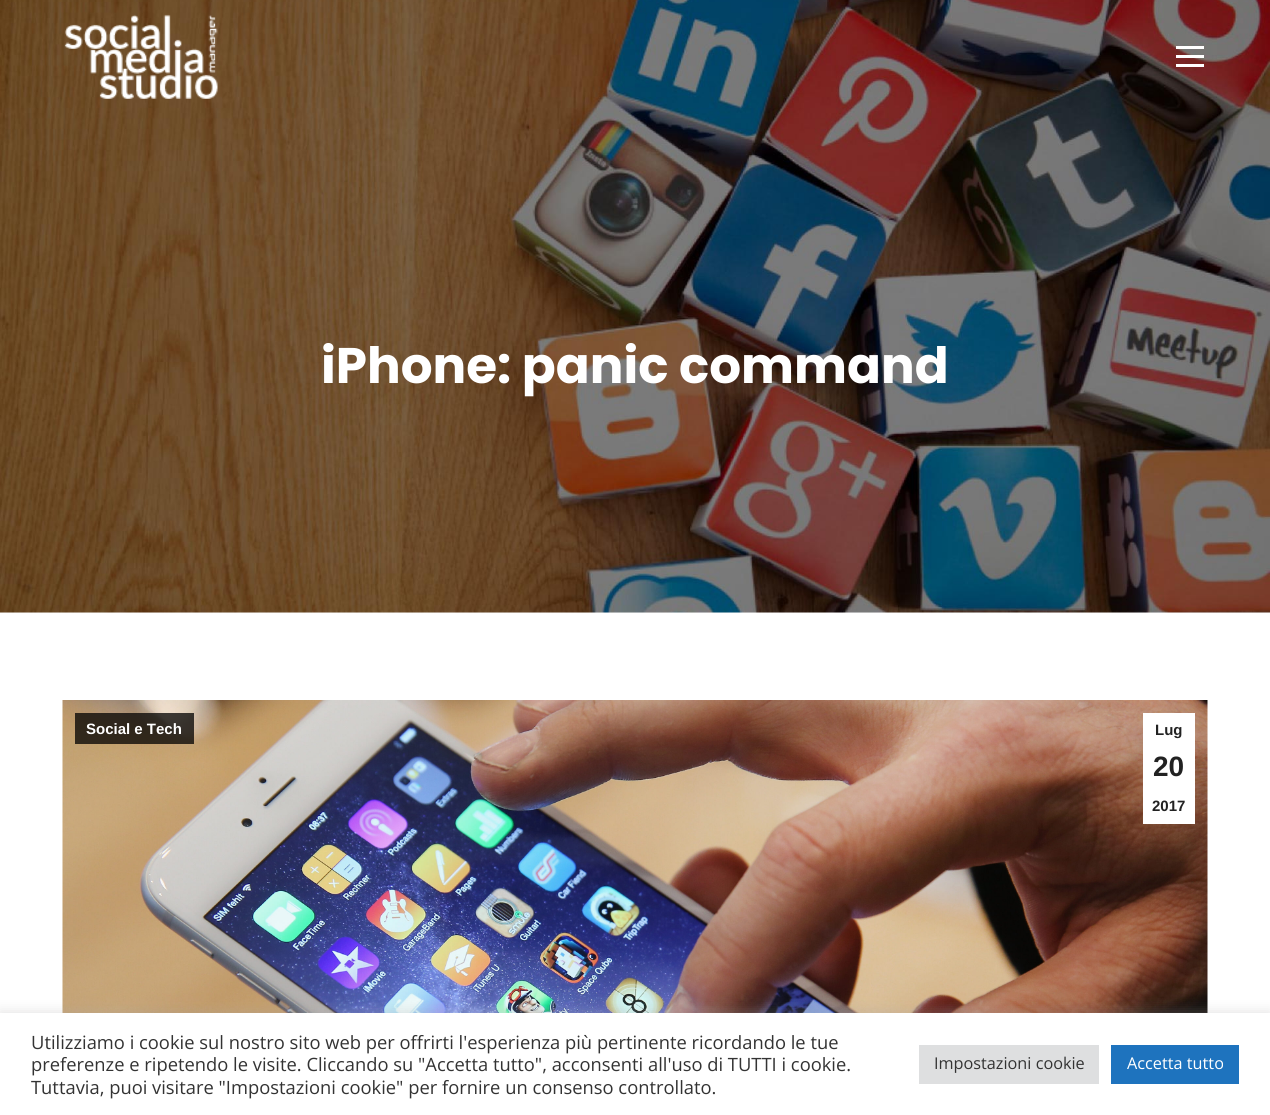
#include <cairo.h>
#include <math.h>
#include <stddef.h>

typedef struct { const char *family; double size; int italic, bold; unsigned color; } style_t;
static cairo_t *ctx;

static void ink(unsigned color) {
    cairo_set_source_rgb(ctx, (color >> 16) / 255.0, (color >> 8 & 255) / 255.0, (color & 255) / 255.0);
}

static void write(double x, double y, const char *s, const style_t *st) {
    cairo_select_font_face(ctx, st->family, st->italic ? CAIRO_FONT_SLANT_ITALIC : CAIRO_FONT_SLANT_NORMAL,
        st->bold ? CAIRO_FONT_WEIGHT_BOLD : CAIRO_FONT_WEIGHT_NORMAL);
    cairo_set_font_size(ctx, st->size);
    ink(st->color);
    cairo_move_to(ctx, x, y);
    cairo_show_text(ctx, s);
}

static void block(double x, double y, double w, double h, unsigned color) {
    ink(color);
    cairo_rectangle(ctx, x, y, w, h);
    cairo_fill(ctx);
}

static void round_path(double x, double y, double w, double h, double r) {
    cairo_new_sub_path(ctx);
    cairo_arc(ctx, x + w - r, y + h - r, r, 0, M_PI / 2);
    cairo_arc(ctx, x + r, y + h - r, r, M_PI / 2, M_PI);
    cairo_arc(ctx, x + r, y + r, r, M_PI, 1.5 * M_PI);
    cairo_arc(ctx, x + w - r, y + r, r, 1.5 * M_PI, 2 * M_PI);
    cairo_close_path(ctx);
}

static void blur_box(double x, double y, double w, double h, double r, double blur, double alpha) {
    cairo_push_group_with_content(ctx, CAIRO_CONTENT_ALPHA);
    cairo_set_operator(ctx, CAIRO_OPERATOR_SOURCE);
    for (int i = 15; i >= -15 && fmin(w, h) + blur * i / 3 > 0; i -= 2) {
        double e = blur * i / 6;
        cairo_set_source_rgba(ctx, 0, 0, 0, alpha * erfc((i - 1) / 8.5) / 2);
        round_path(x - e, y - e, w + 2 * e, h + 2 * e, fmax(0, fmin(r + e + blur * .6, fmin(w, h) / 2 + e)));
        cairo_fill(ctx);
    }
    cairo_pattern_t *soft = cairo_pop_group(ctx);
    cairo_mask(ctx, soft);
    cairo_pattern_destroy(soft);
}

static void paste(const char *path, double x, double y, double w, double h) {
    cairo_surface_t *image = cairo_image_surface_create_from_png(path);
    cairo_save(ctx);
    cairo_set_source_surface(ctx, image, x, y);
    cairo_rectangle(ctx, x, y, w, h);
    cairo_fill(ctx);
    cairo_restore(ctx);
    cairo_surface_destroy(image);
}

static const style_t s1 = {"Poppins", 50, 0, 1, 0xffffff};
static const style_t s2 = {"Liberation Sans", 15, 0, 1, 0xffffff};
static const style_t s3 = {"Liberation Sans", 15, 0, 1, 0x222222};
static const style_t s4 = {"Liberation Sans", 28, 0, 1, 0x222222};
static const style_t s5 = {"Open Sans", 18.35, 0, 0, 0x333333};
static const style_t s6 = {"Open Sans", 16.25, 0, 0, 0x333333};
static const style_t s7 = {"Open Sans", 16.25, 0, 0, 0xffffff};

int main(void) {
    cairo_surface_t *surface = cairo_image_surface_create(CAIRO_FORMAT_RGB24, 1270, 1115);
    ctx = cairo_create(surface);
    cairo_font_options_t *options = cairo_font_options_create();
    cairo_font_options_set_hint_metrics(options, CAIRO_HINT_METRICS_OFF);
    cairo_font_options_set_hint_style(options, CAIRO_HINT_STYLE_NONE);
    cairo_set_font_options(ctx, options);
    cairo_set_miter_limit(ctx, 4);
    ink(0xffffff);
    cairo_paint(ctx);
    block(0, 612, 1270, 1, 0xf7f7f7);
    paste("pic2.png", 0, 0, 1270, 613);
    paste("pic1.png", 64, 14, 154, 85);
    block(1176, 46, 28, 3, 0xffffff);
    block(1176, 55, 28, 3, 0xffffff);
    block(1176, 64, 28, 3, 0xffffff);
    write(321, 383, "iPhone: panic command", &s1);
    paste("pic3.png", 62, 700, 1146, 313);
    cairo_set_source_rgba(ctx, 0, 0, 0, 0.75);
    cairo_rectangle(ctx, 75, 713, 119, 31);
    cairo_fill(ctx);
    write(86, 734, "Social e Tech", &s2);
    block(1143, 713, 52, 111, 0xffffff);
    write(1155, 735, "Lug", &s3);
    write(1153, 776, "20", &s4);
    write(1152, 811, "2017", &s3);
    ink(0xacabab);
    blur_box(0, 1011, 1270, 103, 0, 6, 0.3);
    block(0, 1013, 1270, 102, 0xffffff);
    write(31, 1049, "Utilizziamo i cookie sul nostro sito web per offrirti l'esperienza più pertinente ricordando le tue", &s5);
    write(31, 1071, "preferenze e ripetendo le visite. Cliccando su \"Accetta tutto\", acconsenti all'uso di TUTTI i cookie.", &s5);
    write(31, 1094, "Tuttavia, puoi visitare \"Impostazioni cookie\" per fornire un consenso controllato.", &s5);
    block(919, 1045, 180, 39, 0xdedfe0);
    write(934, 1069, "Impostazioni cookie", &s6);
    block(1111, 1045, 128, 39, 0x1e73be);
    write(1127, 1069, "Accetta tutto", &s7);
    cairo_surface_write_to_png(surface, "screenshot.png");
    cairo_font_options_destroy(options);
    cairo_destroy(ctx);
    cairo_surface_destroy(surface);
    return 0;
}
